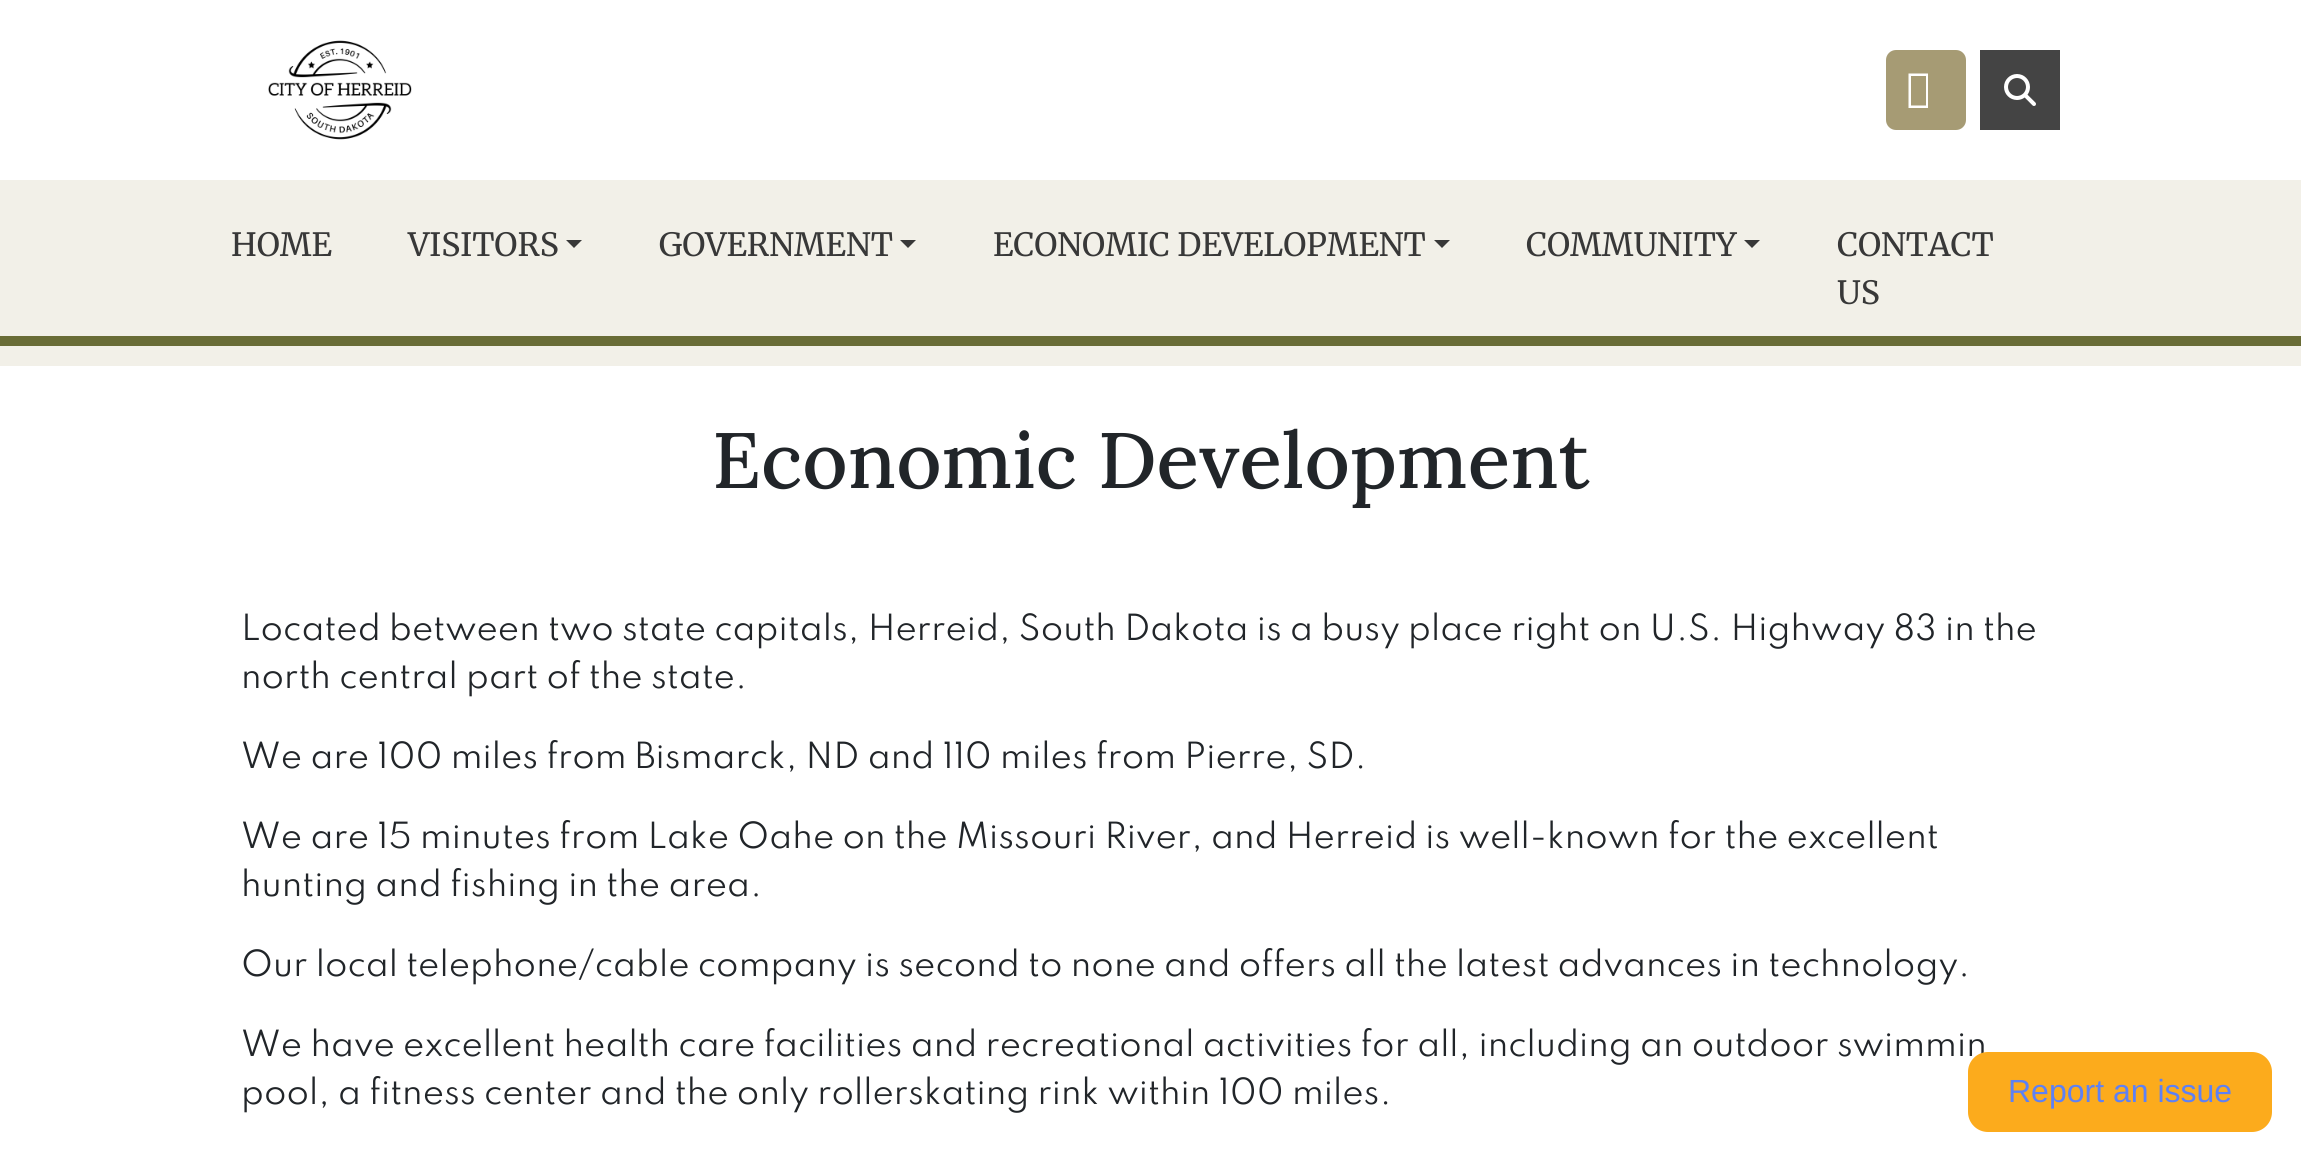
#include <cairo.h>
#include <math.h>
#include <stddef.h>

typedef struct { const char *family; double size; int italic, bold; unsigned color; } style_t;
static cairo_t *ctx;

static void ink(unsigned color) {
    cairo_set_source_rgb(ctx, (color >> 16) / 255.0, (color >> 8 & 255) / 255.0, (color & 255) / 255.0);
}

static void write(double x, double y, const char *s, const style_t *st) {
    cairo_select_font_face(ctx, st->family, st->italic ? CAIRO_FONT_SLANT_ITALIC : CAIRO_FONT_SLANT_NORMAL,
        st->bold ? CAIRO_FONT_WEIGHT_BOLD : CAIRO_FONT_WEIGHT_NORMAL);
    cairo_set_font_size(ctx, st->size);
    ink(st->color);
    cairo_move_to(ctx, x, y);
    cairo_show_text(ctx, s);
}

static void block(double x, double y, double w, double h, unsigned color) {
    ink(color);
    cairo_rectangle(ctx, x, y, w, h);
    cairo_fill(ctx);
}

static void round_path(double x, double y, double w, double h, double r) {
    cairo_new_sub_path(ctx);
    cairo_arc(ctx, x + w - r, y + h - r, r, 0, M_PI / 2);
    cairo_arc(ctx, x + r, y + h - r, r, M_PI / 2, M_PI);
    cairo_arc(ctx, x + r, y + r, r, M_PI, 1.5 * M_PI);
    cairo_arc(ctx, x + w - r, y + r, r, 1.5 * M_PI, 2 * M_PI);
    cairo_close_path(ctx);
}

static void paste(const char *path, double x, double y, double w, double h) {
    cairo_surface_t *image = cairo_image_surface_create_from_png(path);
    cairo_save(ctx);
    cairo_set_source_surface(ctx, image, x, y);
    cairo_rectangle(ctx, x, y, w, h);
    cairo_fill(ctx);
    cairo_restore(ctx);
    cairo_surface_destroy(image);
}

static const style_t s1 = {"Merriweather", 32, 0, 0, 0x383838};
static const style_t s2 = {"Lora Medium", 78.5, 0, 0, 0x212529};
static const style_t s3 = {"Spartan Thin", 32, 0, 0, 0x212529};
static const style_t s4 = {"Liberation Sans", 32, 0, 0, 0x5e81f4};

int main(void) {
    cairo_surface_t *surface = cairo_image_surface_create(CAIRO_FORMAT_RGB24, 2301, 1162);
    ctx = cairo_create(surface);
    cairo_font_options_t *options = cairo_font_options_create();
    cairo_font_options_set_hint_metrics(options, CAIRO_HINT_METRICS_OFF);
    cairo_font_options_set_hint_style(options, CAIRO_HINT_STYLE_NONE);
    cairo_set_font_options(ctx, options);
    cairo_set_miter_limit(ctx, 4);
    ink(0xffffff);
    cairo_paint(ctx);
    paste("pic1.png", 268, 40, 144, 100);
    ink(0xa69b74);
    round_path(1886, 50, 80, 80, 10);
    cairo_fill(ctx);
    ink(0xffffff);
    cairo_new_path(ctx);
    cairo_move_to(ctx, 1908.5, 108);
    cairo_line_to(ctx, 1908.5, 73.5);
    cairo_line_to(ctx, 1928, 73.5);
    cairo_line_to(ctx, 1928, 108);
    cairo_close_path(ctx);
    cairo_move_to(ctx, 1911, 105.5);
    cairo_line_to(ctx, 1926, 105.5);
    cairo_line_to(ctx, 1926, 76);
    cairo_line_to(ctx, 1911, 76);
    cairo_close_path(ctx);
    cairo_fill(ctx);
    block(1980, 50, 80, 80, 0x444444);
    paste("pic2.png", 2004, 74, 32, 32);
    block(0, 180, 2301, 186, 0xf2f0e8);
    write(231, 256, "HOME", &s1);
    write(408, 256, "VISITORS", &s1);
    cairo_new_path(ctx);
    cairo_move_to(ctx, 566, 240);
    cairo_line_to(ctx, 582, 240);
    cairo_line_to(ctx, 574, 248);
    cairo_close_path(ctx);
    cairo_fill(ctx);
    write(659, 256, "GOVERNMENT", &s1);
    cairo_new_path(ctx);
    cairo_move_to(ctx, 900, 240);
    cairo_line_to(ctx, 916, 240);
    cairo_line_to(ctx, 908, 248);
    cairo_close_path(ctx);
    cairo_fill(ctx);
    write(993, 256, "ECONOMIC DEVELOPMENT", &s1);
    cairo_new_path(ctx);
    cairo_move_to(ctx, 1434, 240);
    cairo_line_to(ctx, 1450, 240);
    cairo_line_to(ctx, 1442, 248);
    cairo_close_path(ctx);
    cairo_fill(ctx);
    write(1526, 256, "COMMUNITY", &s1);
    cairo_new_path(ctx);
    cairo_move_to(ctx, 1744, 240);
    cairo_line_to(ctx, 1760, 240);
    cairo_line_to(ctx, 1752, 248);
    cairo_close_path(ctx);
    cairo_fill(ctx);
    write(1837, 256, "CONTACT", &s1);
    write(1837, 304, "US", &s1);
    block(0, 336, 2301, 10, 0x696c36);
    write(712, 488, "Economic Development", &s2);
    write(241, 640, "Located between two state capitals, Herreid, South Dakota is a busy place right on U.S. Highway 83 in the", &s3);
    write(241, 688, "north central part of the state.", &s3);
    write(241, 768, "We are 100 miles from Bismarck, ND and 110 miles from Pierre, SD.", &s3);
    write(241, 848, "We are 15 minutes from Lake Oahe on the Missouri River, and Herreid is well-known for the excellent", &s3);
    write(241, 896, "hunting and fishing in the area.", &s3);
    write(241, 976, "Our local telephone/cable company is second to none and offers all the latest advances in technology.", &s3);
    write(241, 1056, "We have excellent health care facilities and recreational activities for all, including an outdoor swimmin", &s3);
    write(241, 1104, "pool, a fitness center and the only rollerskating rink within 100 miles.", &s3);
    ink(0xfcab1c);
    round_path(1968, 1052, 304, 80, 20);
    cairo_fill(ctx);
    write(2008, 1102, "Report an issue", &s4);
    cairo_surface_write_to_png(surface, "screenshot.png");
    cairo_font_options_destroy(options);
    cairo_destroy(ctx);
    cairo_surface_destroy(surface);
    return 0;
}
